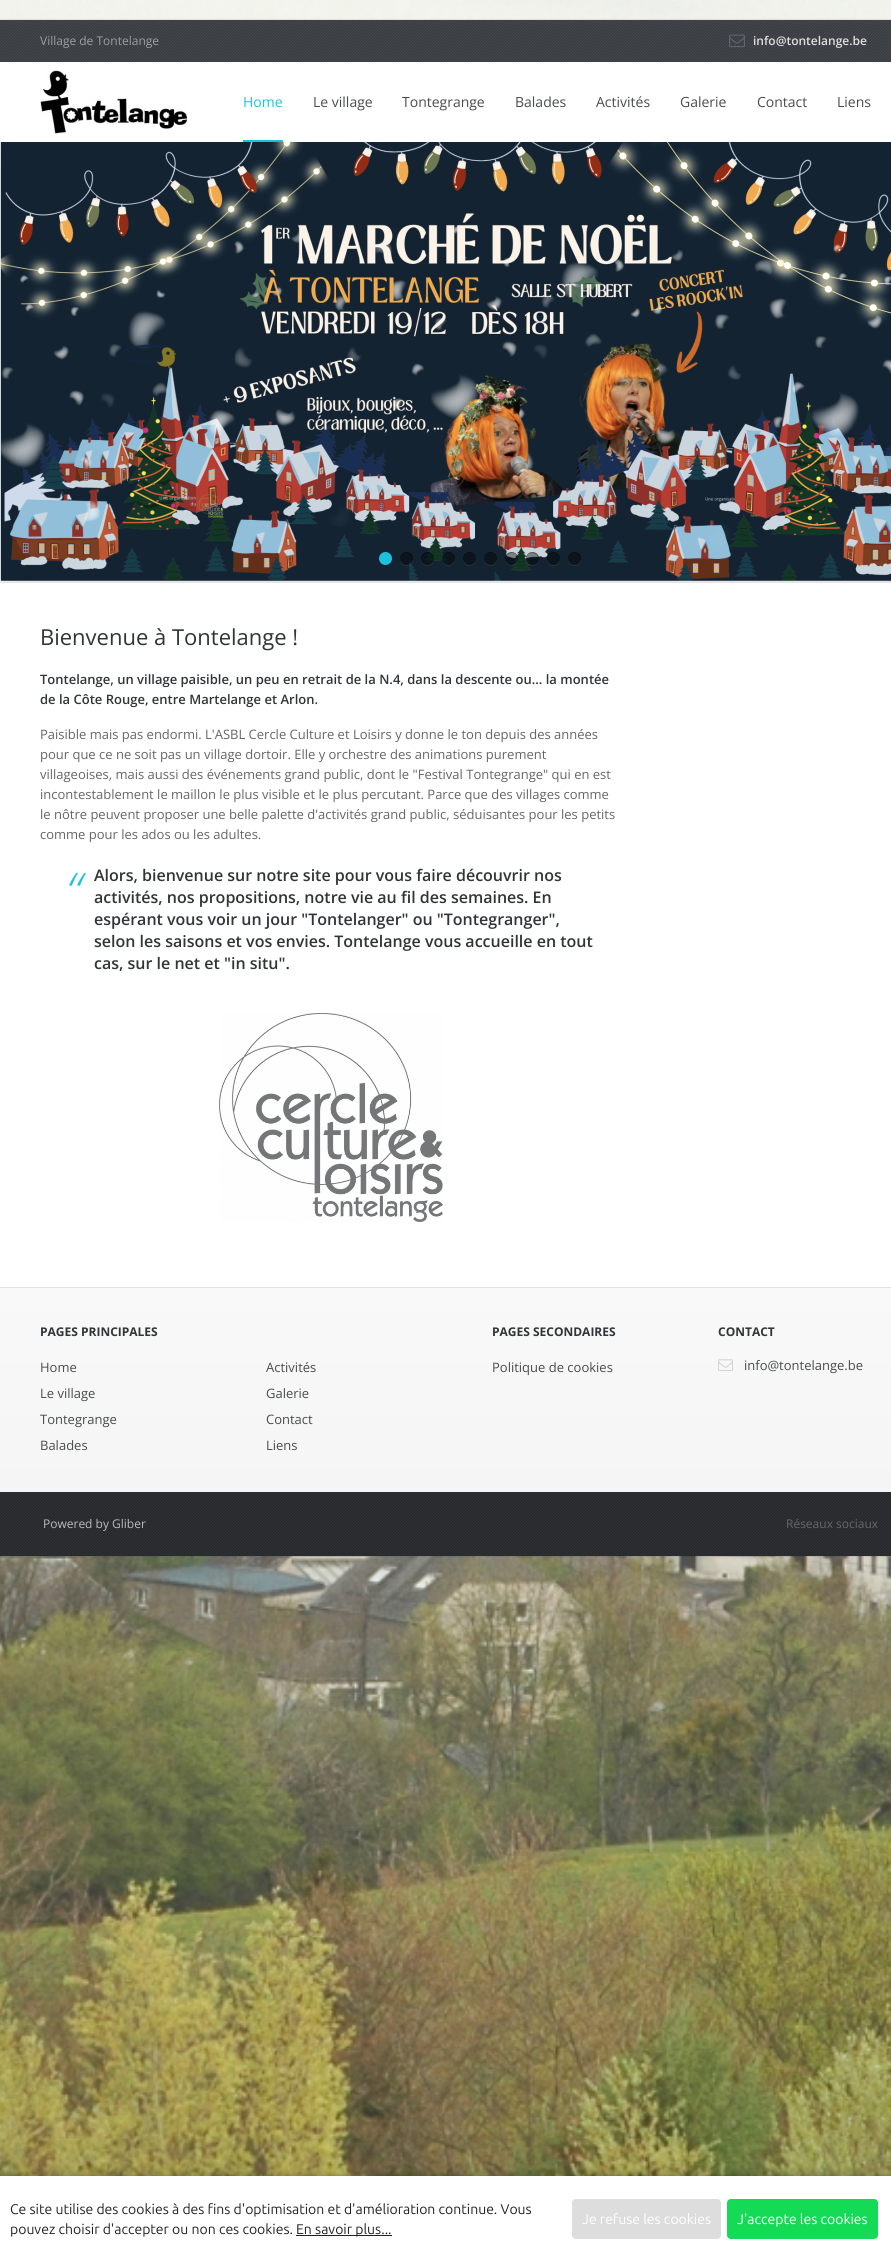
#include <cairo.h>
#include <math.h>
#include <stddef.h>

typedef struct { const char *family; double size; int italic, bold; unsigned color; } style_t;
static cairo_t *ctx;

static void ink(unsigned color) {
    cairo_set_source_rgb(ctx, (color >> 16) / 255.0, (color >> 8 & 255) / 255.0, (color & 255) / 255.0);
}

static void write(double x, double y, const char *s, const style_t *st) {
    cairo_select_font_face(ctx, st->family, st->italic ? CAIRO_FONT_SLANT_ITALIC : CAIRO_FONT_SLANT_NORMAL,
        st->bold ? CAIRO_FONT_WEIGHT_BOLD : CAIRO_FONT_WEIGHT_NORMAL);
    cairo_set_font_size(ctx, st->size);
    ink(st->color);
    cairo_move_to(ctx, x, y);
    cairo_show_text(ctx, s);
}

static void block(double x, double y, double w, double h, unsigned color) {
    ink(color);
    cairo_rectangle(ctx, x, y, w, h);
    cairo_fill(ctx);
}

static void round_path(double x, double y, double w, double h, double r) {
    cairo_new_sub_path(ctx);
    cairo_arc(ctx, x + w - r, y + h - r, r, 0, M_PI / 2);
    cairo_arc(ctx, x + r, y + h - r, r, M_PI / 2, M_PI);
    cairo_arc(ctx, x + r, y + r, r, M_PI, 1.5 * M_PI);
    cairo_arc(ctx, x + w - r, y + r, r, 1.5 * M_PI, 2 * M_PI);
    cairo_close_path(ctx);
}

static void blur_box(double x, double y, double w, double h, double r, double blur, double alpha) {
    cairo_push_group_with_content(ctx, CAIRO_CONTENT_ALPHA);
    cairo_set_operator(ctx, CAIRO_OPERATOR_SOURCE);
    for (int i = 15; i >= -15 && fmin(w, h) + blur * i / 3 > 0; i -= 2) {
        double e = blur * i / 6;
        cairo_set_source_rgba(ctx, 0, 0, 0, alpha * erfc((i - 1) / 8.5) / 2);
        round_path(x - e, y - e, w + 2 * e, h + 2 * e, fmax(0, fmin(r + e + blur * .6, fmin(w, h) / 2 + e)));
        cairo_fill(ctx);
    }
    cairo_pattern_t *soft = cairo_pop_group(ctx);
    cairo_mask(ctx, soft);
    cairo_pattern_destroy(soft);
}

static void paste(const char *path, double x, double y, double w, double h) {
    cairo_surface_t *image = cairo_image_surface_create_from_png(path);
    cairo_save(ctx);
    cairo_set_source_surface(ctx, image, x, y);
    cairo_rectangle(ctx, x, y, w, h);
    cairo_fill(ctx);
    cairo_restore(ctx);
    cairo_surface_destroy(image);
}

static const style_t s1 = {"Open Sans", 12, 0, 0, 0x9b9fa2};
static const style_t s2 = {"Open Sans SemiBold", 12, 0, 0, 0xdfdfdf};
static const style_t s3 = {"Open Sans", 14, 0, 0, 0x1dc1de};
static const style_t s4 = {"Open Sans", 14, 0, 0, 0x4a4c4c};
static const style_t s5 = {"Open Sans", 22, 0, 0, 0x313538};
static const style_t s6 = {"Open Sans SemiBold", 13, 0, 0, 0x313538};
static const style_t s7 = {"Open Sans", 13, 0, 0, 0x666666};
static const style_t s8 = {"Open Sans Light", 52, 1, 0, 0x1dc1de};
static const style_t s9 = {"Open Sans SemiBold", 16, 0, 0, 0x313538};
static const style_t s10 = {"Open Sans", 12, 0, 1, 0x313538};
static const style_t s11 = {"Open Sans", 13, 0, 0, 0x4a4c4c};
static const style_t s12 = {"Open Sans", 12, 0, 0, 0xb8bdc0};
static const style_t s13 = {"Open Sans", 12, 0, 0, 0x64696d};
static const style_t s14 = {"Ubuntu", 14, 0, 0, 0x222222};
static const style_t s15 = {"Ubuntu", 14, 0, 0, 0xffffff};

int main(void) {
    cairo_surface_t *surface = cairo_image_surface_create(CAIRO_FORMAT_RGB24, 891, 2262);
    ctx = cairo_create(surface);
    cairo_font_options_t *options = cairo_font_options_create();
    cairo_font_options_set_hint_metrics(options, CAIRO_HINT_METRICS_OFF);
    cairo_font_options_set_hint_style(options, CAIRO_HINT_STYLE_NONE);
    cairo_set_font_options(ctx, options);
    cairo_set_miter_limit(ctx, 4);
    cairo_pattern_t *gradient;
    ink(0xffffff);
    cairo_paint(ctx);
    paste("pic1.png", 0, 0, 891, 2176);
    ink(0x000000);
    blur_box(0, 20, 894, 1536, 0, 1, 0.2);
    block(0, 583, 891, 704, 0xffffff);
    paste("pic2.png", 0, 20, 891, 42);
    write(40, 45, "Village de Tontelange", &s1);
    paste("pic3.png", 729, 34, 16, 14);
    write(753, 45, "info@tontelange.be", &s2);
    block(0, 62, 891, 80, 0xffffff);
    paste("pic4.png", 40, 70, 148, 64);
    write(243, 107, "Home", &s3);
    block(243, 140, 40, 2, 0x1dc1de);
    write(313, 107, "Le village", &s4);
    write(402, 107, "Tontegrange", &s4);
    write(515, 107, "Balades", &s4);
    write(596, 107, "Activités", &s4);
    write(680, 107, "Galerie", &s4);
    write(757, 107, "Contact", &s4);
    write(837, 107, "Liens", &s4);
    paste("pic5.png", 0, 142, 891, 440);
    ink(0x1dc1de);
    cairo_arc(ctx, 385.5, 558.5, 6.5, 0, 2 * M_PI);
    cairo_fill(ctx);
    cairo_set_source_rgba(ctx, 0.98, 0.98, 0.98, 0.1);
    cairo_new_path(ctx);
    cairo_move_to(ctx, 400, 559);
    cairo_curve_to(ctx, 399.5, 568, 413.5, 568, 413, 559);
    cairo_curve_to(ctx, 412.5, 567, 400.5, 567, 400, 559);
    cairo_close_path(ctx);
    cairo_fill(ctx);
    cairo_set_source_rgba(ctx, 0, 0, 0, 0.4);
    cairo_arc(ctx, 406.5, 558.5, 6.5, 0, 2 * M_PI);
    cairo_fill(ctx);
    cairo_new_path(ctx);
    cairo_move_to(ctx, 406, 553);
    cairo_curve_to(ctx, 411, 553, 413, 557, 412.5, 560.5);
    cairo_curve_to(ctx, 416, 551, 399.5, 548.5, 400, 559);
    cairo_curve_to(ctx, 400, 556, 402, 553, 406, 553);
    cairo_close_path(ctx);
    cairo_fill(ctx);
    ink(0x2b3945);
    cairo_new_path(ctx);
    cairo_move_to(ctx, 421, 559);
    cairo_curve_to(ctx, 420.5, 568, 434.5, 568, 434, 559);
    cairo_curve_to(ctx, 433.5, 567, 421.5, 567, 421, 559);
    cairo_close_path(ctx);
    cairo_fill(ctx);
    cairo_set_source_rgba(ctx, 0, 0, 0, 0.4);
    cairo_arc(ctx, 427.5, 558.5, 6.5, 0, 2 * M_PI);
    cairo_fill(ctx);
    cairo_new_path(ctx);
    cairo_move_to(ctx, 428, 553);
    cairo_curve_to(ctx, 432, 553, 434, 556, 434, 559);
    cairo_curve_to(ctx, 434.5, 548.5, 418, 551, 421.5, 560.5);
    cairo_curve_to(ctx, 421, 557, 423, 553, 428, 553);
    cairo_close_path(ctx);
    cairo_fill(ctx);
    ink(0x2b3945);
    cairo_new_path(ctx);
    cairo_move_to(ctx, 442, 559);
    cairo_curve_to(ctx, 441.5, 568, 455.5, 568, 455, 559);
    cairo_curve_to(ctx, 454.5, 567, 442.5, 567, 442, 559);
    cairo_close_path(ctx);
    cairo_fill(ctx);
    cairo_set_source_rgba(ctx, 0, 0, 0, 0.4);
    cairo_arc(ctx, 448.5, 558.5, 6.5, 0, 2 * M_PI);
    cairo_fill(ctx);
    cairo_new_path(ctx);
    cairo_move_to(ctx, 448, 553);
    cairo_curve_to(ctx, 453, 553, 455, 557, 454.5, 560.5);
    cairo_curve_to(ctx, 458, 551, 441.5, 548.5, 442, 559);
    cairo_curve_to(ctx, 442, 556, 444, 553, 448, 553);
    cairo_close_path(ctx);
    cairo_fill(ctx);
    ink(0x2b3945);
    cairo_new_path(ctx);
    cairo_move_to(ctx, 463, 559);
    cairo_curve_to(ctx, 462.5, 568, 476.5, 568, 476, 559);
    cairo_curve_to(ctx, 475.5, 567, 463.5, 567, 463, 559);
    cairo_close_path(ctx);
    cairo_fill(ctx);
    cairo_set_source_rgba(ctx, 0, 0, 0, 0.4);
    cairo_arc(ctx, 469.5, 558.5, 6.5, 0, 2 * M_PI);
    cairo_fill(ctx);
    cairo_new_path(ctx);
    cairo_move_to(ctx, 470, 553);
    cairo_curve_to(ctx, 474, 553, 476, 556, 476, 559);
    cairo_curve_to(ctx, 476.5, 548.5, 460, 551, 463.5, 560.5);
    cairo_curve_to(ctx, 463, 557, 465, 553, 470, 553);
    cairo_close_path(ctx);
    cairo_fill(ctx);
    ink(0x2b3945);
    cairo_new_path(ctx);
    cairo_move_to(ctx, 484, 559);
    cairo_curve_to(ctx, 483.5, 568, 497.5, 568, 497, 559);
    cairo_curve_to(ctx, 496.5, 567, 484.5, 567, 484, 559);
    cairo_close_path(ctx);
    cairo_fill(ctx);
    cairo_set_source_rgba(ctx, 0, 0, 0, 0.4);
    cairo_arc(ctx, 490.5, 558.5, 6.5, 0, 2 * M_PI);
    cairo_fill(ctx);
    cairo_new_path(ctx);
    cairo_move_to(ctx, 490, 553);
    cairo_curve_to(ctx, 495, 553, 497, 557, 496.5, 560.5);
    cairo_curve_to(ctx, 500, 551, 483.5, 548.5, 484, 559);
    cairo_curve_to(ctx, 484, 556, 486, 553, 490, 553);
    cairo_close_path(ctx);
    cairo_fill(ctx);
    cairo_set_source_rgba(ctx, 0.98, 0.98, 0.98, 0.1);
    cairo_new_path(ctx);
    cairo_move_to(ctx, 505, 559);
    cairo_curve_to(ctx, 504.5, 568, 518.5, 568, 518, 559);
    cairo_curve_to(ctx, 517.5, 567, 505.5, 567, 505, 559);
    cairo_close_path(ctx);
    cairo_fill(ctx);
    cairo_set_source_rgba(ctx, 0, 0, 0, 0.4);
    cairo_arc(ctx, 511.5, 558.5, 6.5, 0, 2 * M_PI);
    cairo_fill(ctx);
    cairo_new_path(ctx);
    cairo_move_to(ctx, 512, 553);
    cairo_curve_to(ctx, 516, 553, 518, 556, 518, 559);
    cairo_curve_to(ctx, 518.5, 548.5, 502, 551, 505.5, 560.5);
    cairo_curve_to(ctx, 505, 557, 507, 553, 512, 553);
    cairo_close_path(ctx);
    cairo_fill(ctx);
    cairo_set_source_rgba(ctx, 0.98, 0.98, 0.98, 0.1);
    cairo_new_path(ctx);
    cairo_move_to(ctx, 526, 559);
    cairo_curve_to(ctx, 525.5, 568, 539.5, 568, 539, 559);
    cairo_curve_to(ctx, 538.5, 567, 526.5, 567, 526, 559);
    cairo_close_path(ctx);
    cairo_fill(ctx);
    cairo_set_source_rgba(ctx, 0, 0, 0, 0.4);
    cairo_arc(ctx, 532.5, 558.5, 6.5, 0, 2 * M_PI);
    cairo_fill(ctx);
    cairo_new_path(ctx);
    cairo_move_to(ctx, 532, 553);
    cairo_curve_to(ctx, 537, 553, 539, 557, 538.5, 560.5);
    cairo_curve_to(ctx, 542, 551, 525.5, 548.5, 526, 559);
    cairo_curve_to(ctx, 526, 556, 528, 553, 532, 553);
    cairo_close_path(ctx);
    cairo_fill(ctx);
    ink(0x2b3945);
    cairo_new_path(ctx);
    cairo_move_to(ctx, 547, 559);
    cairo_curve_to(ctx, 546.5, 568, 560.5, 568, 560, 559);
    cairo_curve_to(ctx, 559.5, 567, 547.5, 567, 547, 559);
    cairo_close_path(ctx);
    cairo_fill(ctx);
    cairo_set_source_rgba(ctx, 0, 0, 0, 0.4);
    cairo_arc(ctx, 553.5, 558.5, 6.5, 0, 2 * M_PI);
    cairo_fill(ctx);
    cairo_new_path(ctx);
    cairo_move_to(ctx, 554, 553);
    cairo_curve_to(ctx, 558, 553, 560, 556, 560, 559);
    cairo_curve_to(ctx, 560.5, 548.5, 544, 551, 547.5, 560.5);
    cairo_curve_to(ctx, 547, 557, 549, 553, 554, 553);
    cairo_close_path(ctx);
    cairo_fill(ctx);
    ink(0x2b3945);
    cairo_new_path(ctx);
    cairo_move_to(ctx, 568, 559);
    cairo_curve_to(ctx, 567.5, 568, 581.5, 568, 581, 559);
    cairo_curve_to(ctx, 580.5, 567, 568.5, 567, 568, 559);
    cairo_close_path(ctx);
    cairo_fill(ctx);
    cairo_set_source_rgba(ctx, 0, 0, 0, 0.4);
    cairo_arc(ctx, 574.5, 558.5, 6.5, 0, 2 * M_PI);
    cairo_fill(ctx);
    cairo_new_path(ctx);
    cairo_move_to(ctx, 574, 553);
    cairo_curve_to(ctx, 579, 553, 581, 557, 580.5, 560.5);
    cairo_curve_to(ctx, 584, 551, 567.5, 548.5, 568, 559);
    cairo_curve_to(ctx, 568, 556, 570, 553, 574, 553);
    cairo_close_path(ctx);
    cairo_fill(ctx);
    block(0, 582, 891, 1, 0xe4e4e4);
    write(40, 645, "Bienvenue à Tontelange !", &s5);
    write(40, 684, "Tontelange, un village paisible, un peu en retrait de la N.4, dans la descente ou... la montée", &s6);
    write(40, 704, "de la Côte Rouge, entre Martelange et Arlon.", &s6);
    write(40, 739, "Paisible mais pas endormi. L'ASBL Cercle Culture et Loisirs y donne le ton depuis des années", &s7);
    write(40, 759, "pour que ce ne soit pas un village dortoir. Elle y orchestre des animations purement", &s7);
    write(40, 779, "villageoises, mais aussi des événements grand public, dont le \"Festival Tontegrange\" qui en est", &s7);
    write(40, 799, "incontestablement le maillon le plus visible et le plus percutant. Parce que des villages comme", &s7);
    write(40, 819, "le nôtre peuvent proposer une belle palette d'activités grand public, séduisantes pour les petits", &s7);
    write(40, 839, "comme pour les ados ou les adultes.", &s7);
    write(62, 910, "“", &s8);
    write(94, 881, "Alors, bienvenue sur notre site pour vous faire découvrir nos", &s9);
    write(94, 903, "activités, nos propositions, notre vie au fil des semaines. En", &s9);
    write(94, 925, "espérant vous voir un jour \"Tontelanger\" ou \"Tontegranger\",", &s9);
    write(94, 947, "selon les saisons et vos envies. Tontelange vous accueille en tout", &s9);
    write(94, 969, "cas, sur le net et \"in situ\".", &s9);
    paste("pic6.png", 219, 1013, 224, 209);
    block(0, 1287, 891, 1, 0xe2e2e2);
    gradient = cairo_pattern_create_linear(480, 1288, 480, 1492);
    cairo_pattern_add_color_stop_rgba(gradient, 0.02, 0.976, 0.976, 0.976, 1);
    cairo_pattern_add_color_stop_rgba(gradient, 1, 0.961, 0.961, 0.961, 1);
    cairo_set_source(ctx, gradient);
    cairo_pattern_destroy(gradient);
    cairo_rectangle(ctx, 0, 1288, 891, 204);
    cairo_fill(ctx);
    write(40, 1336, "PAGES PRINCIPALES", &s10);
    write(40, 1372, "Home", &s11);
    write(40, 1398, "Le village", &s11);
    write(40, 1424, "Tontegrange", &s11);
    write(40, 1450, "Balades", &s11);
    write(492, 1336, "PAGES SECONDAIRES", &s10);
    write(492, 1372, "Politique de cookies", &s11);
    write(718, 1336, "CONTACT", &s10);
    paste("pic7.png", 718, 1359, 15, 12);
    write(744, 1370, "info@tontelange.be", &s11);
    write(266, 1372, "Activités", &s11);
    write(266, 1398, "Galerie", &s11);
    write(266, 1424, "Contact", &s11);
    write(266, 1450, "Liens", &s11);
    paste("pic8.png", 0, 1492, 891, 64);
    write(43, 1528, "Powered by Gliber", &s12);
    write(786, 1528, "Réseaux sociaux", &s13);
    ink(0x000000);
    blur_box(0, 2176, 891, 86, 0, 5, 0.3);
    block(0, 2176, 891, 86, 0xffffff);
    write(10, 2214, "Ce site utilise des cookies à des fins d'optimisation et d'amélioration continue. Vous", &s14);
    write(10, 2234, "pouvez choisir d'accepter ou non ces cookies.", &s14);
    block(296, 2235, 96, 1, 0x222222);
    write(296, 2234, "En savoir plus...", &s14);
    ink(0xdddddd);
    round_path(572, 2199, 149, 40, 4);
    cairo_fill(ctx);
    write(582, 2224, "Je refuse les cookies", &s15);
    ink(0x14da55);
    round_path(727, 2199, 151, 40, 4);
    cairo_fill(ctx);
    write(737, 2224, "J'accepte les cookies", &s15);
    cairo_surface_write_to_png(surface, "screenshot.png");
    cairo_font_options_destroy(options);
    cairo_destroy(ctx);
    cairo_surface_destroy(surface);
    return 0;
}
